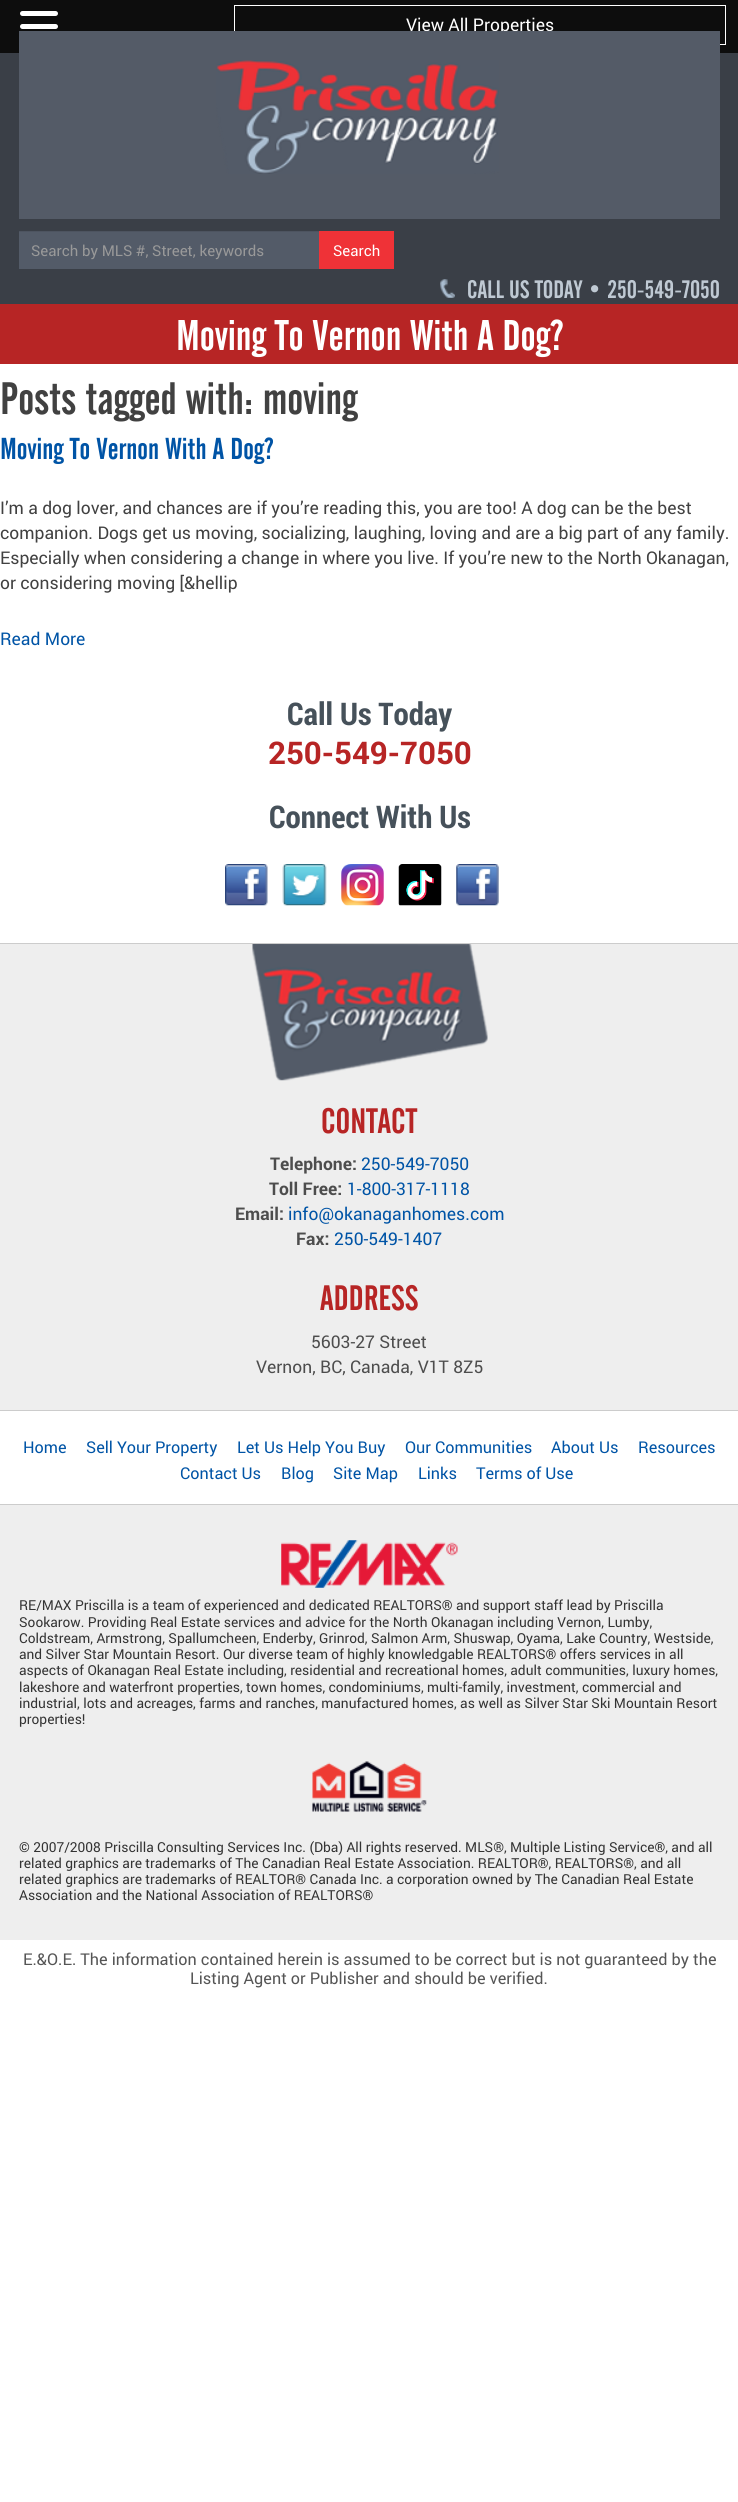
#include <cairo.h>
#include <math.h>
#include <stddef.h>

typedef struct { const char *family; double size; int italic, bold; unsigned color; } style_t;
static cairo_t *ctx;

static void ink(unsigned color) {
    cairo_set_source_rgb(ctx, (color >> 16) / 255.0, (color >> 8 & 255) / 255.0, (color & 255) / 255.0);
}

static void write(double x, double y, const char *s, const style_t *st) {
    cairo_select_font_face(ctx, st->family, st->italic ? CAIRO_FONT_SLANT_ITALIC : CAIRO_FONT_SLANT_NORMAL,
        st->bold ? CAIRO_FONT_WEIGHT_BOLD : CAIRO_FONT_WEIGHT_NORMAL);
    cairo_set_font_size(ctx, st->size);
    ink(st->color);
    cairo_move_to(ctx, x, y);
    cairo_show_text(ctx, s);
}

static void block(double x, double y, double w, double h, unsigned color) {
    ink(color);
    cairo_rectangle(ctx, x, y, w, h);
    cairo_fill(ctx);
}

static void round_path(double x, double y, double w, double h, double r) {
    cairo_new_sub_path(ctx);
    cairo_arc(ctx, x + w - r, y + h - r, r, 0, M_PI / 2);
    cairo_arc(ctx, x + r, y + h - r, r, M_PI / 2, M_PI);
    cairo_arc(ctx, x + r, y + r, r, M_PI, 1.5 * M_PI);
    cairo_arc(ctx, x + w - r, y + r, r, 1.5 * M_PI, 2 * M_PI);
    cairo_close_path(ctx);
}

static void paste(const char *path, double x, double y, double w, double h) {
    cairo_surface_t *image = cairo_image_surface_create_from_png(path);
    cairo_save(ctx);
    cairo_set_source_surface(ctx, image, x, y);
    cairo_rectangle(ctx, x, y, w, h);
    cairo_fill(ctx);
    cairo_restore(ctx);
    cairo_surface_destroy(image);
}

static const style_t s1 = {"roboto", 17.5, 0, 0, 0xffffff};
static const style_t s2 = {"roboto", 15, 0, 0, 0x999999};
static const style_t s3 = {"roboto", 15, 0, 0, 0xffffff};
static const style_t s4 = {"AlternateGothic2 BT", 25, 0, 0, 0xbfc9d3};
static const style_t s5 = {"AlternateGothic2 BT", 42.5, 0, 0, 0xffffff};
static const style_t s6 = {"AlternateGothic2 BT", 45, 0, 0, 0x414141};
static const style_t s7 = {"AlternateGothic2 BT", 30, 0, 0, 0x0054a6};
static const style_t s8 = {"roboto", 17.5, 0, 0, 0x414141};
static const style_t s9 = {"roboto", 17.5, 0, 0, 0x0054a6};
static const style_t s10 = {"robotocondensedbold", 31.25, 0, 1, 0x46515a};
static const style_t s11 = {"roboto", 31.25, 0, 1, 0xb72525};
static const style_t s12 = {"AlternateGothic2 BT", 35, 0, 0, 0xb72525};
static const style_t s13 = {"roboto", 17.5, 0, 1, 0x4d4d4d};
static const style_t s14 = {"roboto", 17.5, 0, 0, 0x4d4d4d};
static const style_t s15 = {"roboto", 16.25, 0, 0, 0x0054a6};
static const style_t s16 = {"roboto", 13.75, 0, 0, 0x333333};
static const style_t s17 = {"roboto", 16.25, 0, 0, 0x555555};

int main(void) {
    cairo_surface_t *surface = cairo_image_surface_create(CAIRO_FORMAT_RGB24, 738, 2502);
    ctx = cairo_create(surface);
    cairo_font_options_t *options = cairo_font_options_create();
    cairo_font_options_set_hint_metrics(options, CAIRO_HINT_METRICS_OFF);
    cairo_font_options_set_hint_style(options, CAIRO_HINT_STYLE_NONE);
    cairo_set_font_options(ctx, options);
    cairo_set_miter_limit(ctx, 4);
    ink(0xffffff);
    cairo_paint(ctx);
    block(0, 0, 738, 53, 0x0d0d0d);
    cairo_rectangle(ctx, 234.5, 5.5, 491, 39);
    ink(0xffffff);
    cairo_set_line_width(ctx, 1);
    cairo_stroke(ctx);
    write(406, 31, "View All Properties", &s1);
    round_path(20, 11, 38, 5, 2.5);
    cairo_fill(ctx);
    round_path(20, 24, 38, 5, 2.5);
    cairo_fill(ctx);
    block(0, 53, 738, 251, 0x3a3f47);
    block(19, 31, 701, 188, 0x545b67);
    paste("pic1.png", 216, 60, 283, 114);
    block(19, 232, 300, 37, 0x535b68);
    block(19, 231, 300, 1, 0x4d5460);
    write(31, 256, "Search by MLS #, Street, keywords", &s2);
    block(319, 231, 75, 38, 0xef3237);
    write(333, 256, "Search", &s3);
    paste("pic2.png", 440, 279, 15, 19);
    write(467, 298, "CALL US TODAY • 250-549-7050", &s4);
    block(0, 304, 738, 60, 0xb72525);
    write(176, 350, "Moving To Vernon With A Dog?", &s5);
    write(0, 414, "Posts tagged with: moving", &s6);
    write(0, 459, "Moving To Vernon With A Dog?", &s7);
    write(0, 514, "I’m a dog lover, and chances are if you’re reading this, you are too! A dog can be the best", &s8);
    write(0, 539, "companion. Dogs get us moving, socializing, laughing, loving and are a big part of any family.", &s8);
    write(0, 564, "Especially when considering a change in where you live. If you’re new to the North Okanagan,", &s8);
    write(0, 589, "or considering moving [&hellip", &s8);
    write(0, 645, "Read More", &s9);
    block(0, 944, 738, 996, 0xeeeeee);
    write(287, 725, "Call Us Today", &s10);
    write(268, 764, "250-549-7050", &s11);
    write(269, 828, "Connect With Us", &s10);
    paste("pic3.png", 225, 864, 43, 42);
    paste("pic4.png", 282, 864, 45, 42);
    paste("pic5.png", 341, 864, 43, 42);
    paste("pic6.png", 398, 864, 44, 42);
    paste("pic7.png", 456, 864, 43, 42);
    block(0, 943, 738, 1, 0xcccccc);
    block(0, 1410, 738, 1, 0xcccccc);
    paste("pic8.png", 252, 944, 236, 137);
    write(321, 1133, "CONTACT", &s12);
    write(270, 1170, "Telephone:", &s13);
    write(361, 1170, "250-549-7050", &s9);
    write(269, 1195, "Toll Free:", &s13);
    write(347, 1195, "1-800-317-1118", &s9);
    write(235, 1220, "Email:", &s13);
    write(288, 1220, "info@okanaganhomes.com", &s9);
    write(296, 1245, "Fax:", &s13);
    write(334, 1245, "250-549-1407", &s9);
    write(320, 1310, "ADDRESS", &s12);
    write(311, 1348, "5603-27 Street", &s14);
    write(256, 1373, "Vernon, BC, Canada, V1T 8Z5", &s14);
    block(0, 1411, 738, 93, 0xffffff);
    block(0, 1504, 738, 1, 0xcccccc);
    write(23, 1453, "Home", &s15);
    write(86, 1453, "Sell Your Property", &s15);
    write(237, 1453, "Let Us Help You Buy", &s15);
    write(405, 1453, "Our Communities", &s15);
    write(551, 1453, "About Us", &s15);
    write(638, 1453, "Resources", &s15);
    write(180, 1479, "Contact Us", &s15);
    write(281, 1479, "Blog", &s15);
    write(333, 1479, "Site Map", &s15);
    write(418, 1479, "Links", &s15);
    write(476, 1479, "Terms of Use", &s15);
    paste("pic9.png", 281, 1540, 177, 48);
    write(19, 1610, "RE/MAX Priscilla is a team of experienced and dedicated REALTORS® and support staff lead by Priscilla", &s16);
    write(19, 1627, "Sookarow. Providing Real Estate services and advice for the North Okanagan including Vernon, Lumby,", &s16);
    write(19, 1643, "Coldstream, Armstrong, Spallumcheen, Enderby, Grinrod, Salmon Arm, Shuswap, Oyama, Lake Country, Westside,", &s16);
    write(19, 1659, "and Silver Star Mountain Resort. Our diverse team of highly knowledgable REALTORS® offers services in all", &s16);
    write(19, 1675, "aspects of Okanagan Real Estate including, residential and recreational homes, adult communities, luxury homes,", &s16);
    write(19, 1692, "lakeshore and waterfront properties, town homes, condominiums, multi-family, investment, commercial and", &s16);
    write(19, 1708, "industrial, lots and acreages, farms and ranches, manufactured homes, as well as Silver Star Ski Mountain Resort", &s16);
    write(19, 1724, "properties!", &s16);
    paste("pic10.png", 312, 1761, 115, 51);
    write(19, 1852, "© 2007/2008 Priscilla Consulting Services Inc. (Dba) All rights reserved. MLS®, Multiple Listing Service®, and all", &s16);
    write(19, 1868, "related graphics are trademarks of The Canadian Real Estate Association. REALTOR®, REALTORS®, and all", &s16);
    write(19, 1884, "related graphics are trademarks of REALTOR® Canada Inc. a corporation owned by The Canadian Real Estate", &s16);
    write(19, 1900, "Association and the National Association of REALTORS®", &s16);
    write(23, 1965, "E.&O.E. The information contained herein is assumed to be correct but is not guaranteed by the", &s17);
    write(190, 1984, "Listing Agent or Publisher and should be verified.", &s17);
    cairo_surface_write_to_png(surface, "screenshot.png");
    cairo_font_options_destroy(options);
    cairo_destroy(ctx);
    cairo_surface_destroy(surface);
    return 0;
}
